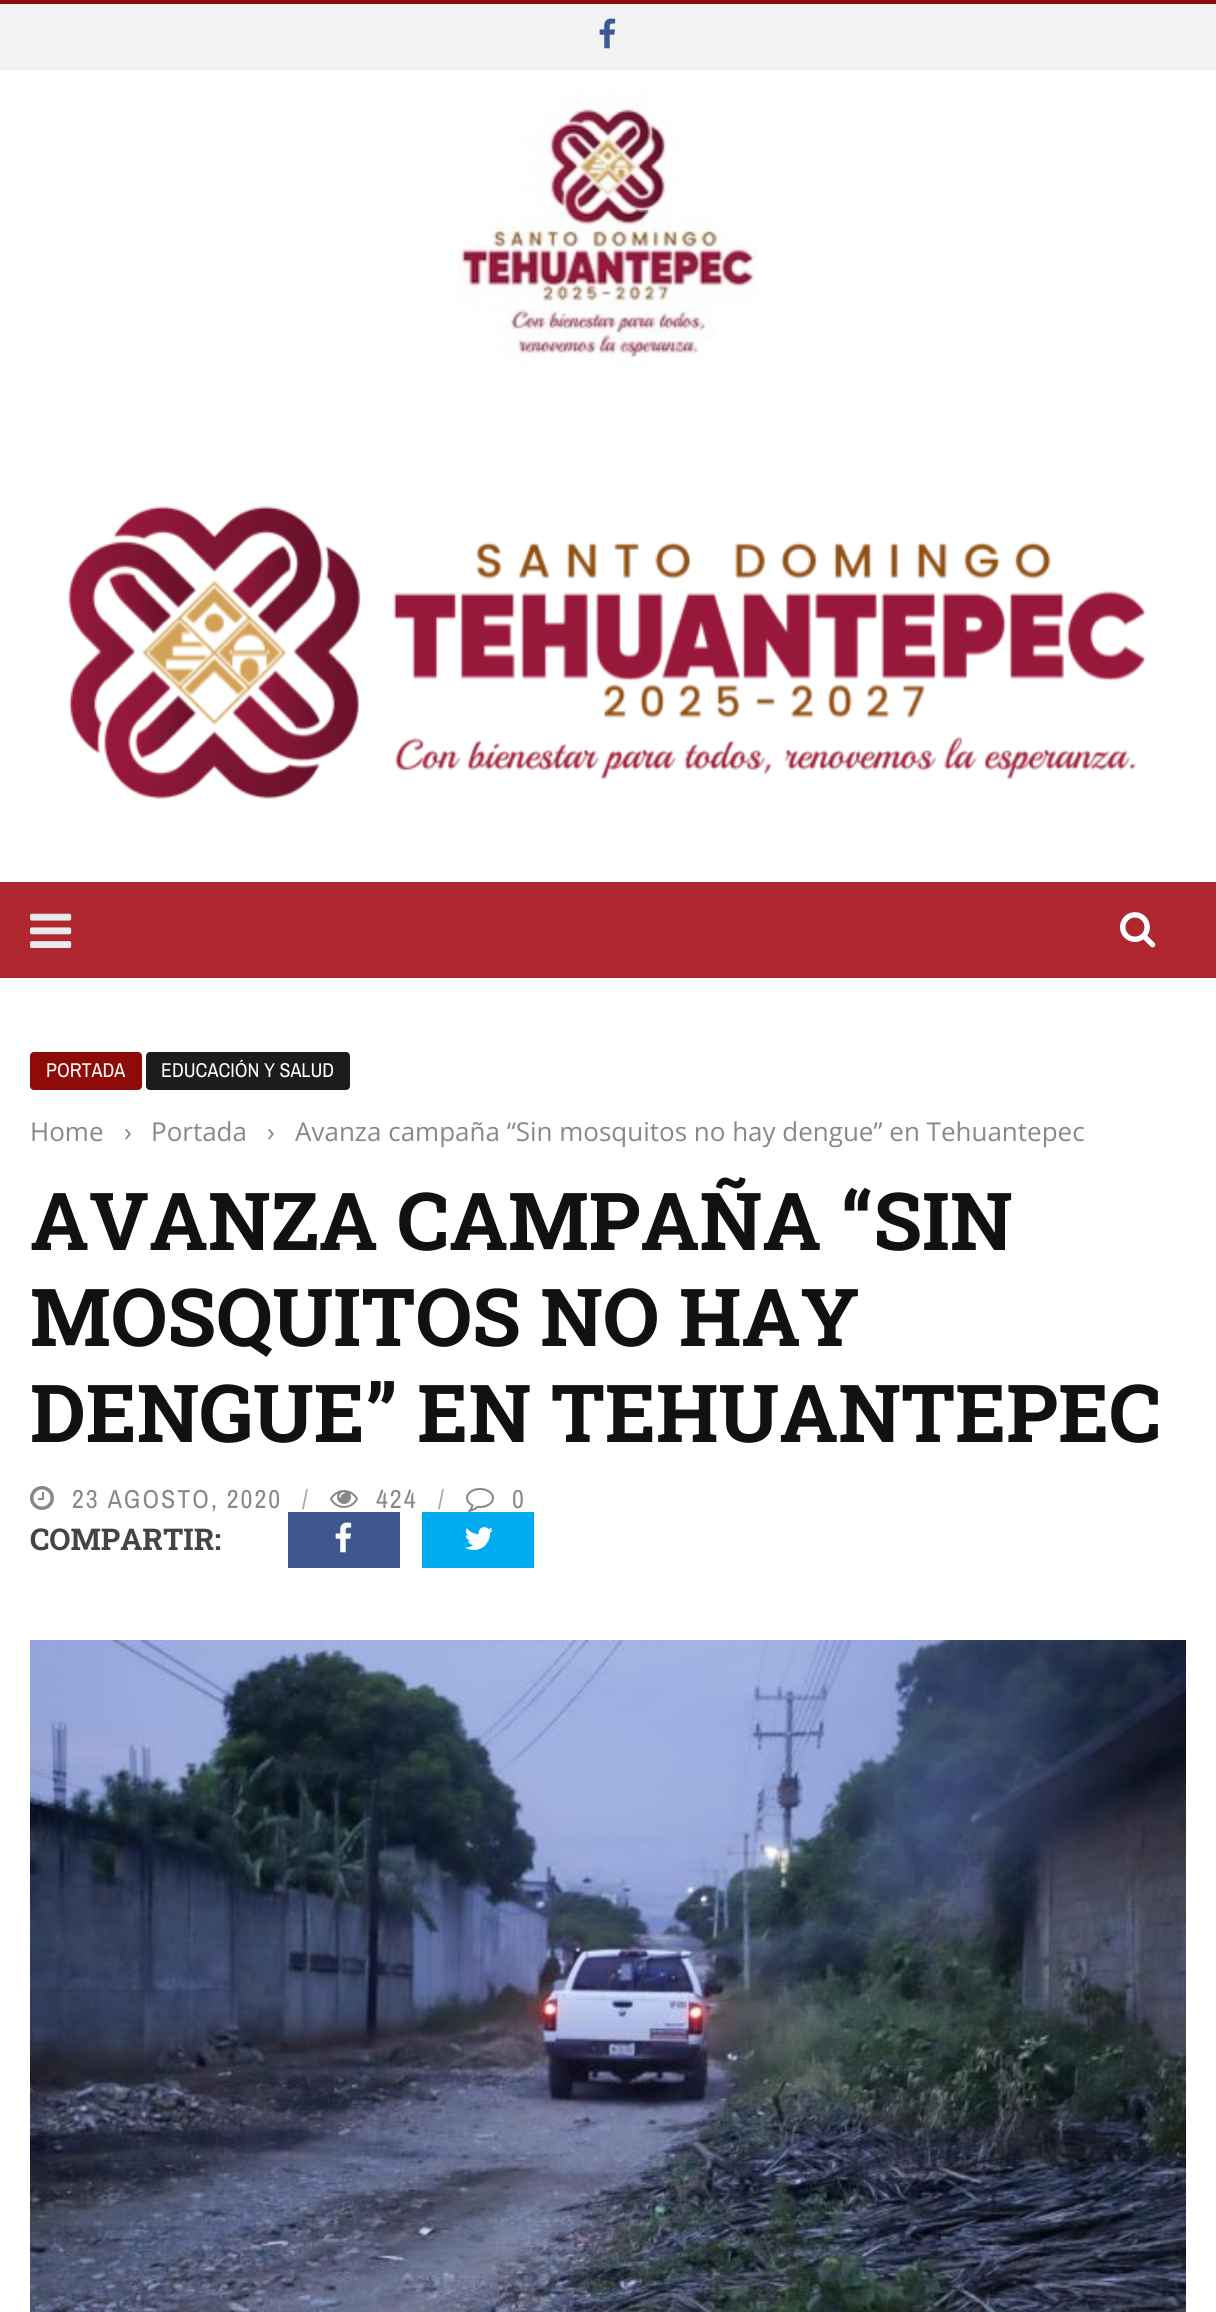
#include <cairo.h>
#include <math.h>
#include <stddef.h>

typedef struct { const char *family; double size; int italic, bold; unsigned color; } style_t;
static cairo_t *ctx;

static void ink(unsigned color) {
    cairo_set_source_rgb(ctx, (color >> 16) / 255.0, (color >> 8 & 255) / 255.0, (color & 255) / 255.0);
}

static void write(double x, double y, const char *s, const style_t *st) {
    cairo_select_font_face(ctx, st->family, st->italic ? CAIRO_FONT_SLANT_ITALIC : CAIRO_FONT_SLANT_NORMAL,
        st->bold ? CAIRO_FONT_WEIGHT_BOLD : CAIRO_FONT_WEIGHT_NORMAL);
    cairo_set_font_size(ctx, st->size);
    ink(st->color);
    cairo_move_to(ctx, x, y);
    cairo_show_text(ctx, s);
}

static void write_spaced(double x, double y, const char *s, double letter, double word) {
    cairo_move_to(ctx, x, y);
    while (*s) {
        char ch[5] = {0};
        int n = 0;
        do ch[n++] = *s++; while ((*s & 0xC0) == 0x80);
        cairo_show_text(ctx, ch);
        cairo_rel_move_to(ctx, letter + word * (*ch == ' '), 0);
    }
}

static void block(double x, double y, double w, double h, unsigned color) {
    ink(color);
    cairo_rectangle(ctx, x, y, w, h);
    cairo_fill(ctx);
}

static void round_path(double x, double y, double w, double h, double r) {
    cairo_new_sub_path(ctx);
    cairo_arc(ctx, x + w - r, y + h - r, r, 0, M_PI / 2);
    cairo_arc(ctx, x + r, y + h - r, r, M_PI / 2, M_PI);
    cairo_arc(ctx, x + r, y + r, r, M_PI, 1.5 * M_PI);
    cairo_arc(ctx, x + w - r, y + r, r, 1.5 * M_PI, 2 * M_PI);
    cairo_close_path(ctx);
}

static void paste(const char *path, double x, double y, double w, double h) {
    cairo_surface_t *image = cairo_image_surface_create_from_png(path);
    cairo_save(ctx);
    cairo_set_source_surface(ctx, image, x, y);
    cairo_rectangle(ctx, x, y, w, h);
    cairo_fill(ctx);
    cairo_restore(ctx);
    cairo_surface_destroy(image);
}

static const style_t s1 = {"Archivo Narrow", 20, 0, 0, 0xffffff};
static const style_t s2 = {"Open Sans", 26, 0, 0, 0x888888};
static const style_t s3 = {"Roboto Slab", 80, 0, 1, 0x111111};
static const style_t s4 = {"Roboto Slab", 30, 0, 1, 0x444444};

int main(void) {
    cairo_surface_t *surface = cairo_image_surface_create(CAIRO_FORMAT_RGB24, 1216, 2312);
    ctx = cairo_create(surface);
    cairo_font_options_t *options = cairo_font_options_create();
    cairo_font_options_set_hint_metrics(options, CAIRO_HINT_METRICS_OFF);
    cairo_font_options_set_hint_style(options, CAIRO_HINT_STYLE_NONE);
    cairo_set_font_options(ctx, options);
    cairo_set_miter_limit(ctx, 4);
    ink(0xffffff);
    cairo_paint(ctx);
    block(0, 4, 1216, 64, 0xf2f2f2);
    block(0, 0, 1216, 4, 0x8e0b07);
    block(0, 68, 1216, 2, 0xeeeeee);
    paste("pic1.png", 599, 18, 17, 31);
    paste("pic2.png", 458, 89, 300, 278);
    paste("pic3.png", 68, 505, 1078, 295);
    block(0, 882, 1216, 96, 0xaf272f);
    paste("pic4.png", 30, 913, 42, 35);
    paste("pic5.png", 1120, 912, 36, 36);
    ink(0x8e0b07);
    round_path(30, 1052, 112, 38, 4);
    cairo_fill(ctx);
    write(46, 1077, "PORTADA", &s1);
    ink(0x1c1c1c);
    round_path(146, 1052, 204, 38, 4);
    cairo_fill(ctx);
    write(161, 1077, "EDUCACIÓN Y SALUD", &s1);
    write(30, 1141, "Home", &s2);
    write(124, 1141, "›", &s2);
    write(151, 1141, "Portada", &s2);
    write(267, 1141, "›", &s2);
    write(295, 1141, "Avanza campaña “Sin mosquitos no hay dengue” en Tehuantepec", &s2);
    write(30, 1250, "AVANZA CAMPAÑA “SIN", &s3);
    write(30, 1346, "MOSQUITOS NO HAY", &s3);
    write(30, 1442, "DENGUE” EN TEHUANTEPEC", &s3);
    paste("pic6.png", 30, 1486, 24, 24);
    cairo_select_font_face(ctx, "Archivo Narrow", CAIRO_FONT_SLANT_NORMAL, CAIRO_FONT_WEIGHT_NORMAL);
    cairo_set_font_size(ctx, 26);
    ink(0x888888);
    write_spaced(72, 1508, "23 AGOSTO, 2020", 2, 0);
    ink(0xaaaaaa);
    write_spaced(302, 1508, "/", 2, 0);
    paste("pic7.png", 330, 1490, 28, 18);
    ink(0x888888);
    write_spaced(376, 1508, "424", 2, 0);
    ink(0xaaaaaa);
    write_spaced(438, 1508, "/", 2, 0);
    paste("pic8.png", 466, 1488, 28, 24);
    ink(0x888888);
    write_spaced(512, 1508, "0", 2, 0);
    write(30, 1550, "COMPARTIR:", &s4);
    block(288, 1512, 112, 56, 0x3e578c);
    paste("pic9.png", 335, 1522, 17, 31);
    block(422, 1512, 112, 56, 0x00acee);
    paste("pic10.png", 465, 1527, 28, 23);
    paste("pic11.png", 30, 1640, 1156, 672);
    cairo_surface_write_to_png(surface, "screenshot.png");
    cairo_font_options_destroy(options);
    cairo_destroy(ctx);
    cairo_surface_destroy(surface);
    return 0;
}
